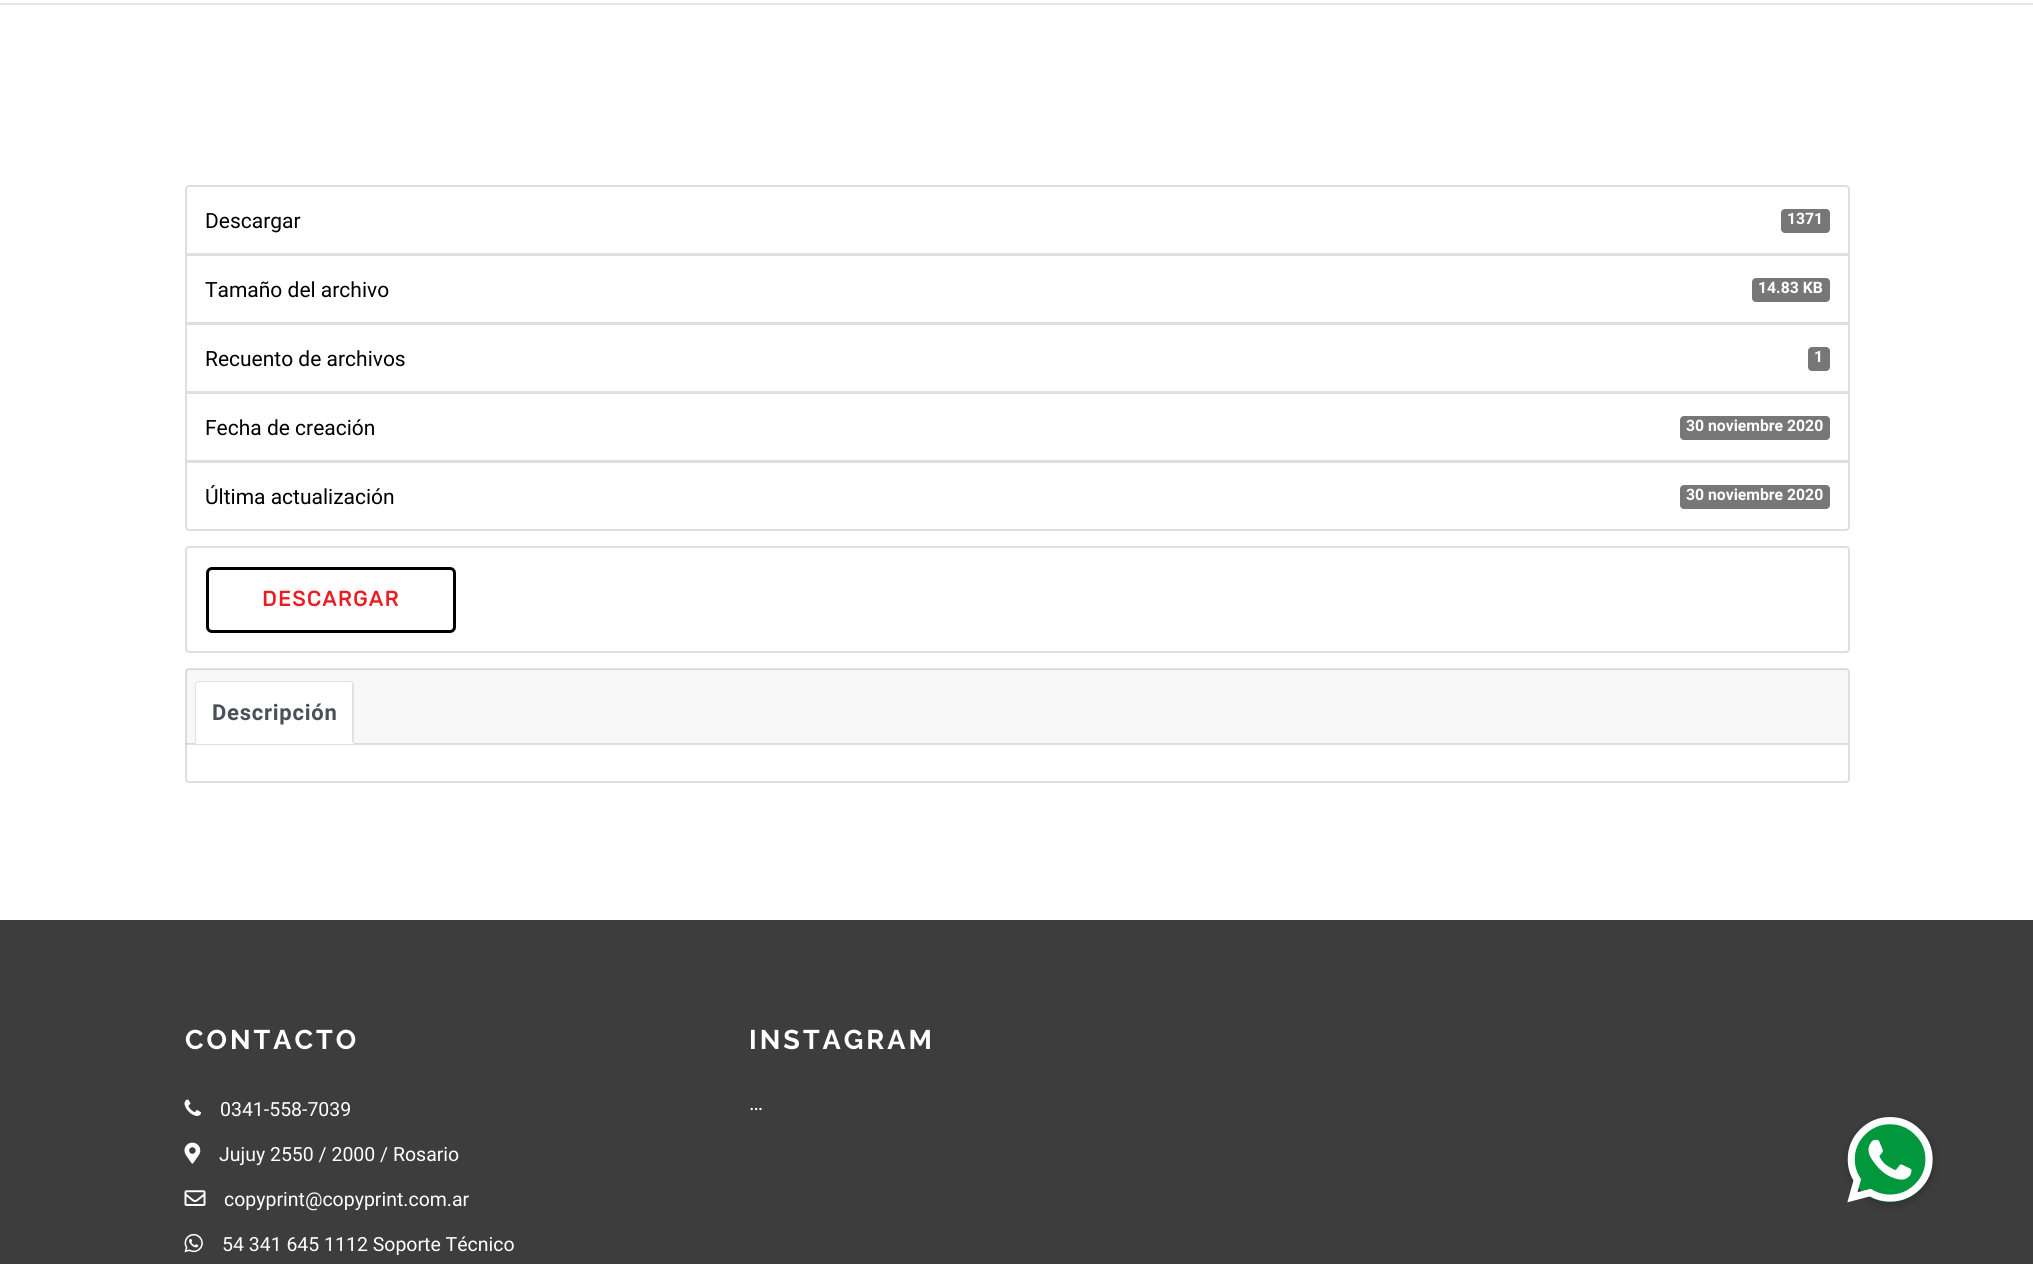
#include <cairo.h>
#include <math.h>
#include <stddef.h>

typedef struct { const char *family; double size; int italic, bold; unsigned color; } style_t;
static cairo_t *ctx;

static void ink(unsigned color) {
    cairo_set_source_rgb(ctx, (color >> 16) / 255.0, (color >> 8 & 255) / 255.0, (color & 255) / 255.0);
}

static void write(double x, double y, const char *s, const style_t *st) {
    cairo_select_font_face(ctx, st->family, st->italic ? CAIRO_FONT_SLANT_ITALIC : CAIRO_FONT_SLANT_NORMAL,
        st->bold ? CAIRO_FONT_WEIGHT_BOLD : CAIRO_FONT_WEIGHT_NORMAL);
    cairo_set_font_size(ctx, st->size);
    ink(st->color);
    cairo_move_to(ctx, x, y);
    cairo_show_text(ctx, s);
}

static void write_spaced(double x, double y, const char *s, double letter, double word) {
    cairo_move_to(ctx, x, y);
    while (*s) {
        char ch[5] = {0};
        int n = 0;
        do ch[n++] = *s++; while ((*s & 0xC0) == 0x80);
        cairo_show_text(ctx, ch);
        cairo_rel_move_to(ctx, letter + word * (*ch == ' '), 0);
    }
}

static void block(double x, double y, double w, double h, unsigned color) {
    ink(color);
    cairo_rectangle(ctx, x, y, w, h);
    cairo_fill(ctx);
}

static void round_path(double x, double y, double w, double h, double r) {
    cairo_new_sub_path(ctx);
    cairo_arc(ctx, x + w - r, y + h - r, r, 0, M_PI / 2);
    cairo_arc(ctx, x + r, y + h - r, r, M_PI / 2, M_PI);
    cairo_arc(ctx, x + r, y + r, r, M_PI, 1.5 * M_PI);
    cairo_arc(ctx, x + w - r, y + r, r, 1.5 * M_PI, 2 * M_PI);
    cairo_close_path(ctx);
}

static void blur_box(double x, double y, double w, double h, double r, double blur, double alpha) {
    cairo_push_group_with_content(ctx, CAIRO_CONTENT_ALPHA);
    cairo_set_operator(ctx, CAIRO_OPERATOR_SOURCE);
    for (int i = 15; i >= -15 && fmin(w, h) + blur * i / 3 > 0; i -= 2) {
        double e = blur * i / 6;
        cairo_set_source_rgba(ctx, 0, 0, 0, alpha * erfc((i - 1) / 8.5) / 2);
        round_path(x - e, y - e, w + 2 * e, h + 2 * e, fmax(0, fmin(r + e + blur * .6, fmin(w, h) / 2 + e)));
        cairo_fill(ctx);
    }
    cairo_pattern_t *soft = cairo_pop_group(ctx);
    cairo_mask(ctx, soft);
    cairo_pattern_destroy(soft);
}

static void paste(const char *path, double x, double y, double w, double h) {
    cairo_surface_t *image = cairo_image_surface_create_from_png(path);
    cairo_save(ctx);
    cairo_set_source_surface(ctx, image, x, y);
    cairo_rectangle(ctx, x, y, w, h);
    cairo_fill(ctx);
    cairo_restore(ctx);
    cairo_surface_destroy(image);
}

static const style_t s1 = {"Roboto", 21, 0, 0, 0x000000};
static const style_t s2 = {"Roboto", 15.75, 0, 1, 0xffffff};
static const style_t s3 = {"Roboto", 19.5, 0, 0, 0xffffff};
static const style_t s4 = {"Roboto", 21, 0, 0, 0xffffff};

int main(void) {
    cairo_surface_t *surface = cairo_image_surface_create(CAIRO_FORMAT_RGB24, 2033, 1264);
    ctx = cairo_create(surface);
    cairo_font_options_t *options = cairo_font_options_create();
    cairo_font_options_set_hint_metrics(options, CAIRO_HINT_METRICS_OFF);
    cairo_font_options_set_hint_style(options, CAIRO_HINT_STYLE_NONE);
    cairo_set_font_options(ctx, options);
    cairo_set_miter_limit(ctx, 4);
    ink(0xffffff);
    cairo_paint(ctx);
    block(0, 3, 2033, 2, 0xe7e7e7);
    cairo_new_path(ctx);
    cairo_move_to(ctx, 189, 186);
    cairo_line_to(ctx, 1846, 186);
    cairo_curve_to(ctx, 1847.5, 186, 1849, 187.5, 1849, 189);
    cairo_line_to(ctx, 1849, 254);
    cairo_line_to(ctx, 186, 254);
    cairo_line_to(ctx, 186, 189);
    cairo_curve_to(ctx, 186, 187.5, 187.5, 186, 189, 186);
    cairo_close_path(ctx);
    ink(0xdfdfdf);
    cairo_stroke(ctx);
    write(205, 228, "Descargar", &s1);
    ink(0x777777);
    round_path(1781, 209, 49, 24, 4);
    cairo_fill(ctx);
    write(1787, 224, "1371", &s2);
    cairo_rectangle(ctx, 186, 255, 1663, 68);
    ink(0xdfdfdf);
    cairo_stroke(ctx);
    write(205, 297, "Tamaño del archivo", &s1);
    ink(0x777777);
    round_path(1752, 278, 78, 24, 4);
    cairo_fill(ctx);
    write(1758, 293, "14.83 KB", &s2);
    cairo_rectangle(ctx, 186, 324, 1663, 68);
    ink(0xdfdfdf);
    cairo_stroke(ctx);
    write(205, 366, "Recuento de archivos", &s1);
    ink(0x777777);
    round_path(1808, 347, 22, 24, 4);
    cairo_fill(ctx);
    write(1814, 362, "1", &s2);
    cairo_rectangle(ctx, 186, 393, 1663, 68);
    ink(0xdfdfdf);
    cairo_stroke(ctx);
    write(205, 435, "Fecha de creación", &s1);
    ink(0x777777);
    round_path(1680, 416, 150, 24, 4);
    cairo_fill(ctx);
    write(1686, 431, "30 noviembre 2020", &s2);
    cairo_new_path(ctx);
    cairo_move_to(ctx, 186, 462);
    cairo_line_to(ctx, 1849, 462);
    cairo_line_to(ctx, 1849, 527);
    cairo_curve_to(ctx, 1849, 528.5, 1847.5, 530, 1846, 530);
    cairo_line_to(ctx, 189, 530);
    cairo_curve_to(ctx, 187.5, 530, 186, 528.5, 186, 527);
    cairo_close_path(ctx);
    cairo_fill_preserve(ctx);
    ink(0xdfdfdf);
    cairo_stroke(ctx);
    write(205, 504, "Última actualización", &s1);
    ink(0x777777);
    round_path(1680, 485, 150, 24, 4);
    cairo_fill(ctx);
    write(1686, 500, "30 noviembre 2020", &s2);
    round_path(186, 547, 1663, 105, 3);
    ink(0xdfdfdf);
    cairo_stroke(ctx);
    round_path(207.5, 568.5, 247, 63, 4.5);
    ink(0x000000);
    cairo_set_line_width(ctx, 3);
    cairo_stroke(ctx);
    cairo_select_font_face(ctx, "Rubik", CAIRO_FONT_SLANT_NORMAL, CAIRO_FONT_WEIGHT_BOLD);
    cairo_set_font_size(ctx, 21);
    ink(0xed1c24);
    write_spaced(262, 606, "DESCARGAR", 1.5, 0);
    round_path(186, 669, 1663, 113, 3);
    ink(0xdfdfdf);
    cairo_set_line_width(ctx, 2);
    cairo_stroke(ctx);
    cairo_set_source_rgba(ctx, 0, 0, 0, 0.03);
    cairo_rectangle(ctx, 186, 669, 1662, 75);
    cairo_fill(ctx);
    cairo_set_source_rgba(ctx, 0, 0, 0, 0.12);
    cairo_rectangle(ctx, 186, 743, 1662, 2);
    cairo_fill(ctx);
    ink(0xffffff);
    cairo_new_path(ctx);
    cairo_move_to(ctx, 199, 681);
    cairo_line_to(ctx, 350, 681);
    cairo_curve_to(ctx, 352, 681, 354, 683, 354, 685);
    cairo_line_to(ctx, 354, 744);
    cairo_line_to(ctx, 195, 744);
    cairo_line_to(ctx, 195, 685);
    cairo_curve_to(ctx, 195, 683, 197, 681, 199, 681);
    cairo_close_path(ctx);
    cairo_fill(ctx);
    ink(0xdee2e6);
    cairo_new_path(ctx);
    cairo_move_to(ctx, 199, 681);
    cairo_line_to(ctx, 196, 682);
    cairo_line_to(ctx, 197, 683);
    cairo_line_to(ctx, 199, 682);
    cairo_line_to(ctx, 350, 682);
    cairo_curve_to(ctx, 351, 682, 351, 683, 352, 683);
    cairo_line_to(ctx, 353, 682);
    cairo_line_to(ctx, 350, 681);
    cairo_close_path(ctx);
    cairo_fill(ctx);
    cairo_new_path(ctx);
    cairo_move_to(ctx, 354, 744);
    cairo_line_to(ctx, 354, 685);
    cairo_line_to(ctx, 353, 682);
    cairo_line_to(ctx, 352, 683);
    cairo_line_to(ctx, 352, 685);
    cairo_line_to(ctx, 352, 742);
    cairo_close_path(ctx);
    cairo_fill(ctx);
    ink(0xffffff);
    cairo_new_path(ctx);
    cairo_move_to(ctx, 354, 744);
    cairo_line_to(ctx, 352, 742);
    cairo_line_to(ctx, 197, 742);
    cairo_line_to(ctx, 195, 744);
    cairo_close_path(ctx);
    cairo_fill(ctx);
    ink(0xdee2e6);
    cairo_new_path(ctx);
    cairo_move_to(ctx, 195, 744);
    cairo_line_to(ctx, 197, 742);
    cairo_line_to(ctx, 196, 742);
    cairo_line_to(ctx, 196, 685);
    cairo_line_to(ctx, 197, 683);
    cairo_line_to(ctx, 196, 682);
    cairo_line_to(ctx, 195, 685);
    cairo_close_path(ctx);
    cairo_fill(ctx);
    cairo_select_font_face(ctx, "Roboto", CAIRO_FONT_SLANT_NORMAL, CAIRO_FONT_WEIGHT_BOLD);
    cairo_set_font_size(ctx, 22);
    ink(0x495057);
    write_spaced(212, 720, "Descripción", 0.75, 0);
    block(0, 920, 2033, 344, 0x3d3d3d);
    cairo_select_font_face(ctx, "Raleway", CAIRO_FONT_SLANT_NORMAL, CAIRO_FONT_WEIGHT_BOLD);
    cairo_set_font_size(ctx, 27);
    ink(0xffffff);
    write_spaced(185, 1049, "CONTACTO", 3, 0);
    paste("pic1.png", 184, 1099, 17, 17);
    write(220, 1116, "0341-558-7039", &s3);
    paste("pic2.png", 184, 1142, 17, 22);
    write(219, 1161, "Jujuy 2550 / 2000 / Rosario", &s3);
    paste("pic3.png", 184, 1190, 22, 16);
    write(224, 1206, "copyprint@copyprint.com.ar", &s3);
    paste("pic4.png", 184, 1233, 19, 20);
    write(222, 1251, "54 341 645 1112 Soporte Técnico", &s3);
    cairo_select_font_face(ctx, "Raleway", CAIRO_FONT_SLANT_NORMAL, CAIRO_FONT_WEIGHT_BOLD);
    cairo_set_font_size(ctx, 27);
    write_spaced(749, 1049, "INSTAGRAM", 3, 0);
    write(749, 1110, "…", &s4);
    ink(0x000000);
    blur_box(1847, 1119, 87, 87, 43.5, 4.5, 0.2);
    ink(0x00973d);
    cairo_arc(ctx, 1890, 1160, 42, 0, 2 * M_PI);
    cairo_fill(ctx);
    paste("pic5.png", 1847, 1117, 86, 86);
    cairo_surface_write_to_png(surface, "screenshot.png");
    cairo_font_options_destroy(options);
    cairo_destroy(ctx);
    cairo_surface_destroy(surface);
    return 0;
}
